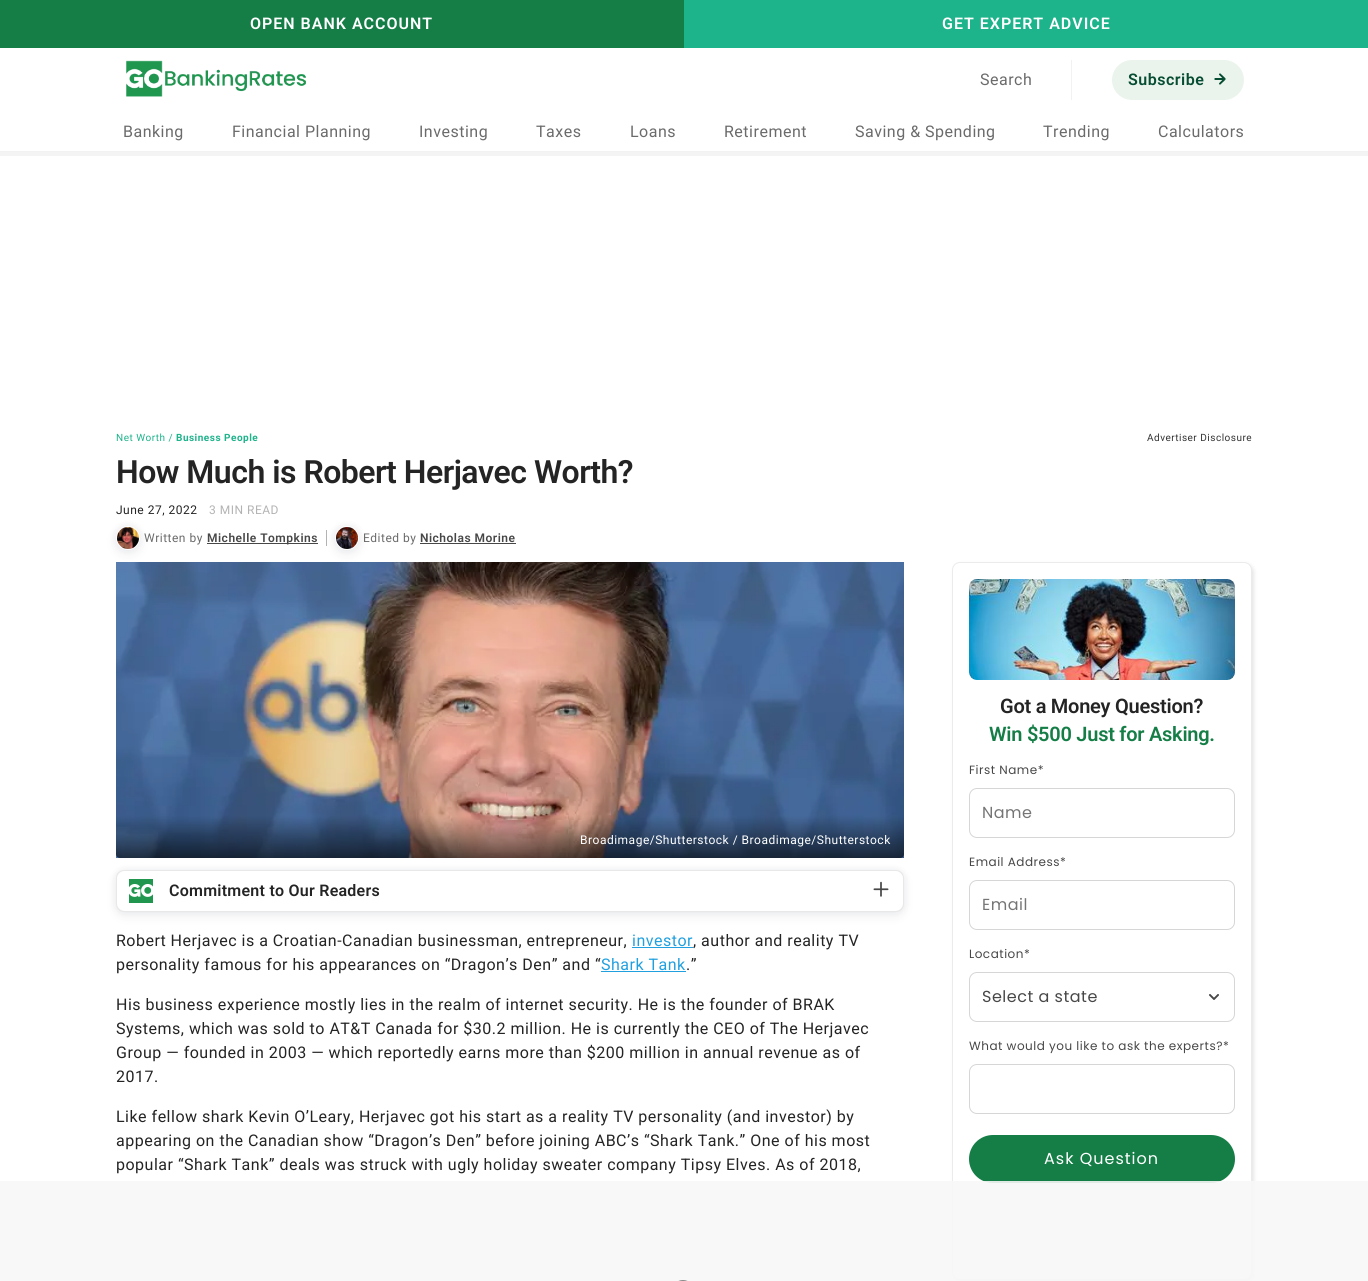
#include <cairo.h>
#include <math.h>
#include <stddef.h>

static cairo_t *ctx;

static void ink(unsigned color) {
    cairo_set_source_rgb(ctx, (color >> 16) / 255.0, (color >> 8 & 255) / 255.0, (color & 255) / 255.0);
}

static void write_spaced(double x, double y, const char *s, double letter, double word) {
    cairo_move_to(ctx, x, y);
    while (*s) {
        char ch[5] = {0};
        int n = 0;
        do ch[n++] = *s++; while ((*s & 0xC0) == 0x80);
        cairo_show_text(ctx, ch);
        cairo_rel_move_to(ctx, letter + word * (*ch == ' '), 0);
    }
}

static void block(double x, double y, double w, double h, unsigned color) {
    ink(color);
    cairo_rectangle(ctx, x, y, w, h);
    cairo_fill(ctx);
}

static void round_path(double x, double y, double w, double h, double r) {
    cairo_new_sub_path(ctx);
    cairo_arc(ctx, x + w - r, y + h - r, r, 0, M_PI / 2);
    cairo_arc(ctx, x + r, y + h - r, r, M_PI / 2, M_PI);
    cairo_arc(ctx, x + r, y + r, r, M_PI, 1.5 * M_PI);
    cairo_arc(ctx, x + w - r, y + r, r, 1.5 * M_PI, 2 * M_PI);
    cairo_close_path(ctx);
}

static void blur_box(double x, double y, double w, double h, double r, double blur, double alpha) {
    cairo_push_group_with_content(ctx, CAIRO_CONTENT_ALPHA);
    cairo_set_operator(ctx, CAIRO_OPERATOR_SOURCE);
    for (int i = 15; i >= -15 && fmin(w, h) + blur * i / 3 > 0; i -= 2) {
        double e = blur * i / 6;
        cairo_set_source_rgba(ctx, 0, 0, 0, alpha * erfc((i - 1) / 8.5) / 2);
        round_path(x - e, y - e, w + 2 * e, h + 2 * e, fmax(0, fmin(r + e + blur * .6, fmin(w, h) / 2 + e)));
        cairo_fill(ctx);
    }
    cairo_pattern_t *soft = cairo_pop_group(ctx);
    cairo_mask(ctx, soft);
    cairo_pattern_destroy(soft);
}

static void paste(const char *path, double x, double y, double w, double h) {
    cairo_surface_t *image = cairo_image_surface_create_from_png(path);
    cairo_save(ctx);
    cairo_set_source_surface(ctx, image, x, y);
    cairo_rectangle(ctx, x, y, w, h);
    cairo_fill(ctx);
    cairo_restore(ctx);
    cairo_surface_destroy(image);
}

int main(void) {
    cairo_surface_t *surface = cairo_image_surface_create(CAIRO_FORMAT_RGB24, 1368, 1281);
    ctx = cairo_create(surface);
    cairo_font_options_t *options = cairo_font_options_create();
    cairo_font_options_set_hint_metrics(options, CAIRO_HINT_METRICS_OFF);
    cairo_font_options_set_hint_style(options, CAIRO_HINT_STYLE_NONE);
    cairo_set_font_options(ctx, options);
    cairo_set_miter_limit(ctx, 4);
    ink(0xffffff);
    cairo_paint(ctx);
    block(0, 0, 684, 48, 0x157e47);
    cairo_select_font_face(ctx, "Roboto SemiBold", CAIRO_FONT_SLANT_NORMAL, CAIRO_FONT_WEIGHT_NORMAL);
    cairo_set_font_size(ctx, 16);
    ink(0xffffff);
    write_spaced(250, 29, "OPEN BANK ACCOUNT", 1, 0);
    block(684, 0, 684, 48, 0x1db38b);
    ink(0xffffff);
    write_spaced(942, 29, "GET EXPERT ADVICE", 1, 0);
    paste("pic1.png", 126, 60, 180, 37);
    cairo_select_font_face(ctx, "Roboto", CAIRO_FONT_SLANT_NORMAL, CAIRO_FONT_WEIGHT_NORMAL);
    ink(0x6b6b6b);
    write_spaced(980, 85, "Search", 0.5, 0);
    block(1071, 60, 1, 40, 0xf2f2f2);
    ink(0xebf4ec);
    round_path(1112, 60, 132, 40, 20);
    cairo_fill(ctx);
    cairo_select_font_face(ctx, "Roboto SemiBold", CAIRO_FONT_SLANT_NORMAL, CAIRO_FONT_WEIGHT_NORMAL);
    ink(0x064d34);
    write_spaced(1128, 85, "Subscribe", 0.5, 0);
    paste("pic2.png", 1214, 73, 12, 12);
    block(0, 151, 1368, 1, 0xf2f2f2);
    cairo_select_font_face(ctx, "Roboto", CAIRO_FONT_SLANT_NORMAL, CAIRO_FONT_WEIGHT_NORMAL);
    ink(0x6b6b6b);
    write_spaced(123, 137, "Banking", 0.5, 0);
    write_spaced(232, 137, "Financial Planning", 0.5, 0);
    write_spaced(419, 137, "Investing", 0.5, 0);
    write_spaced(536, 137, "Taxes", 0.5, 0);
    write_spaced(630, 137, "Loans", 0.5, 0);
    write_spaced(724, 137, "Retirement", 0.5, 0);
    write_spaced(855, 137, "Saving & Spending", 0.5, 0);
    write_spaced(1043, 137, "Trending", 0.5, 0);
    write_spaced(1158, 137, "Calculators", 0.5, 0);
    block(0, 152, 1368, 4, 0xf4f4f4);
    cairo_set_font_size(ctx, 10);
    ink(0x1db38b);
    write_spaced(116, 441, "Net Worth /", 0.5, 0);
    cairo_select_font_face(ctx, "Roboto", CAIRO_FONT_SLANT_NORMAL, CAIRO_FONT_WEIGHT_BOLD);
    write_spaced(176, 441, "Business People", 0.5, 0);
    cairo_select_font_face(ctx, "Roboto", CAIRO_FONT_SLANT_NORMAL, CAIRO_FONT_WEIGHT_NORMAL);
    ink(0x333333);
    write_spaced(1147, 441, "Advertiser Disclosure", 0.5, 0);
    cairo_select_font_face(ctx, "Roboto SemiBold", CAIRO_FONT_SLANT_NORMAL, CAIRO_FONT_WEIGHT_NORMAL);
    cairo_set_font_size(ctx, 32);
    ink(0x242424);
    write_spaced(116, 483, "How Much is Robert Herjavec Worth?", -0.5, 0);
    cairo_select_font_face(ctx, "Roboto", CAIRO_FONT_SLANT_NORMAL, CAIRO_FONT_WEIGHT_NORMAL);
    cairo_set_font_size(ctx, 12);
    write_spaced(116, 514, "June 27, 2022", 0.5, 0);
    ink(0xb3b3b3);
    write_spaced(209, 514, "3 MIN READ", 0.5, 0);
    ink(0x424c5f);
    blur_box(116, 526, 24, 24, 12, 4, 0.08);
    blur_box(116, 530, 24, 24, 12, 6, 0.08);
    cairo_arc(ctx, 128, 538, 11.5, 0, 2 * M_PI);
    ink(0xffffff);
    cairo_set_line_width(ctx, 1);
    cairo_stroke(ctx);
    paste("pic3.png", 117, 527, 22, 22);
    ink(0x6b6b6b);
    write_spaced(144, 542, "Written by", 0.5, 0);
    block(207, 543, 111, 1, 0x474747);
    cairo_select_font_face(ctx, "Roboto SemiBold", CAIRO_FONT_SLANT_NORMAL, CAIRO_FONT_WEIGHT_NORMAL);
    write_spaced(207, 542, "Michelle Tompkins", 0.5, 0);
    block(326, 530, 1, 16, 0xb3b3b3);
    ink(0x424c5f);
    blur_box(335, 526, 24, 24, 12, 4, 0.08);
    blur_box(335, 530, 24, 24, 12, 6, 0.08);
    cairo_arc(ctx, 347, 538, 11.5, 0, 2 * M_PI);
    ink(0xffffff);
    cairo_stroke(ctx);
    paste("pic4.png", 336, 527, 22, 22);
    cairo_select_font_face(ctx, "Roboto", CAIRO_FONT_SLANT_NORMAL, CAIRO_FONT_WEIGHT_NORMAL);
    ink(0x6b6b6b);
    write_spaced(363, 542, "Edited by", 0.5, 0);
    cairo_select_font_face(ctx, "Roboto SemiBold", CAIRO_FONT_SLANT_NORMAL, CAIRO_FONT_WEIGHT_NORMAL);
    ink(0x474747);
    write_spaced(420, 542, "Nicholas Morine", 0.5, 0);
    block(420, 543, 96, 1, 0x474747);
    ink(0x424c5f);
    blur_box(116, 874, 788, 42, 8, 6, 0.08);
    blur_box(116, 870, 788, 42, 8, 4, 0.08);
    paste("pic5.png", 116, 562, 788, 296);
    cairo_select_font_face(ctx, "Roboto", CAIRO_FONT_SLANT_NORMAL, CAIRO_FONT_WEIGHT_NORMAL);
    ink(0xffffff);
    write_spaced(580, 844, "Broadimage/Shutterstock / Broadimage/Shutterstock", 0.5, 0);
    round_path(116.5, 870.5, 787, 41, 7.5);
    ink(0xe8e8e8);
    cairo_stroke(ctx);
    ink(0xffffff);
    round_path(117, 871, 786, 40, 8);
    cairo_fill(ctx);
    paste("pic6.png", 129, 879, 24, 24);
    cairo_select_font_face(ctx, "Roboto SemiBold", CAIRO_FONT_SLANT_NORMAL, CAIRO_FONT_WEIGHT_NORMAL);
    cairo_set_font_size(ctx, 16);
    ink(0x242424);
    write_spaced(169, 896, "Commitment to Our Readers", 0.25, 0);
    paste("pic7.png", 873, 881, 16, 16);
    cairo_select_font_face(ctx, "Roboto", CAIRO_FONT_SLANT_NORMAL, CAIRO_FONT_WEIGHT_NORMAL);
    write_spaced(116, 946, "Robert Herjavec is a Croatian-Canadian businessman, entrepreneur,", 0.5, 0);
    ink(0x21a0df);
    write_spaced(632, 946, "investor", 0.5, 0);
    block(632, 947, 61, 1, 0x21a0df);
    ink(0x242424);
    write_spaced(693, 946, ", author and reality TV", 0.5, 0);
    write_spaced(116, 970, "personality famous for his appearances on “Dragon’s Den” and “", 0.5, 0);
    ink(0x21a0df);
    write_spaced(601, 970, "Shark Tank", 0.5, 0);
    block(601, 971, 85, 1, 0x21a0df);
    ink(0x242424);
    write_spaced(686, 970, ".”", 0.5, 0);
    write_spaced(116, 1010, "His business experience mostly lies in the realm of internet security. He is the founder of BRAK", 0.5, 0);
    write_spaced(116, 1034, "Systems, which was sold to AT&T Canada for $30.2 million. He is currently the CEO of The Herjavec", 0.5, 0);
    write_spaced(116, 1058, "Group — founded in 2003 — which reportedly earns more than $200 million in annual revenue as of", 0.5, 0);
    write_spaced(116, 1082, "2017.", 0.5, 0);
    write_spaced(116, 1122, "Like fellow shark Kevin O’Leary, Herjavec got his start as a reality TV personality (and investor) by", 0.5, 0);
    write_spaced(116, 1146, "appearing on the Canadian show “Dragon’s Den” before joining ABC’s “Shark Tank.” One of his most", 0.5, 0);
    write_spaced(116, 1170, "popular “Shark Tank” deals was struck with ugly holiday sweater company Tipsy Elves. As of 2018,", 0.5, 0);
    ink(0x000000);
    blur_box(954, 564, 300, 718, 8, 2, 0.1);
    ink(0xffffff);
    round_path(952.5, 562.5, 299, 717, 7.5);
    cairo_fill_preserve(ctx);
    ink(0xebebeb);
    cairo_stroke(ctx);
    paste("pic8.png", 969, 579, 266, 101);
    cairo_select_font_face(ctx, "Roboto SemiBold", CAIRO_FONT_SLANT_NORMAL, CAIRO_FONT_WEIGHT_NORMAL);
    cairo_set_font_size(ctx, 20);
    ink(0x242424);
    write_spaced(1000, 713, "Got a Money Question?", -0.25, 0);
    ink(0x157e47);
    write_spaced(989, 741, "Win $500 Just for Asking.", -0.25, 0);
    cairo_select_font_face(ctx, "Poppins", CAIRO_FONT_SLANT_NORMAL, CAIRO_FONT_WEIGHT_NORMAL);
    cairo_set_font_size(ctx, 12);
    ink(0x474747);
    write_spaced(969, 774, "First Name*", 0.5, 0);
    round_path(969.5, 788.5, 265, 49, 7.5);
    ink(0xd6d6d6);
    cairo_stroke(ctx);
    cairo_set_font_size(ctx, 16);
    ink(0x757575);
    write_spaced(982, 818, "Name", 0.5, 0);
    cairo_set_font_size(ctx, 12);
    ink(0x474747);
    write_spaced(969, 866, "Email Address*", 0.5, 0);
    round_path(969.5, 880.5, 265, 49, 7.5);
    ink(0xd6d6d6);
    cairo_stroke(ctx);
    cairo_set_font_size(ctx, 16);
    ink(0x757575);
    write_spaced(982, 910, "Email", 0.5, 0);
    cairo_set_font_size(ctx, 12);
    ink(0x474747);
    write_spaced(969, 958, "Location*", 0.5, 0);
    paste("pic9.png", 1209, 994, 10, 6);
    round_path(969.5, 972.5, 265, 49, 7.5);
    ink(0xd6d6d6);
    cairo_stroke(ctx);
    cairo_set_font_size(ctx, 16);
    ink(0x474747);
    write_spaced(982, 1002, "Select a state", 0.5, 0);
    cairo_set_font_size(ctx, 12);
    write_spaced(969, 1050, "What would you like to ask the experts?*", 0.5, 0);
    round_path(969.5, 1064.5, 265, 49, 7.5);
    ink(0xd6d6d6);
    cairo_stroke(ctx);
    ink(0x157e47);
    round_path(969, 1135, 266, 48, 24);
    cairo_fill(ctx);
    cairo_set_font_size(ctx, 16);
    ink(0xffffff);
    write_spaced(1044, 1164, "Ask Question", 1, 0);
    cairo_set_source_rgba(ctx, 0.969, 0.969, 0.969, 0.9);
    cairo_rectangle(ctx, 0, 1181, 1368, 100);
    cairo_fill(ctx);
    round_path(672.5, 1280.5, 21, 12, 10.5);
    ink(0x888888);
    cairo_stroke(ctx);
    cairo_surface_write_to_png(surface, "screenshot.png");
    cairo_font_options_destroy(options);
    cairo_destroy(ctx);
    cairo_surface_destroy(surface);
    return 0;
}
